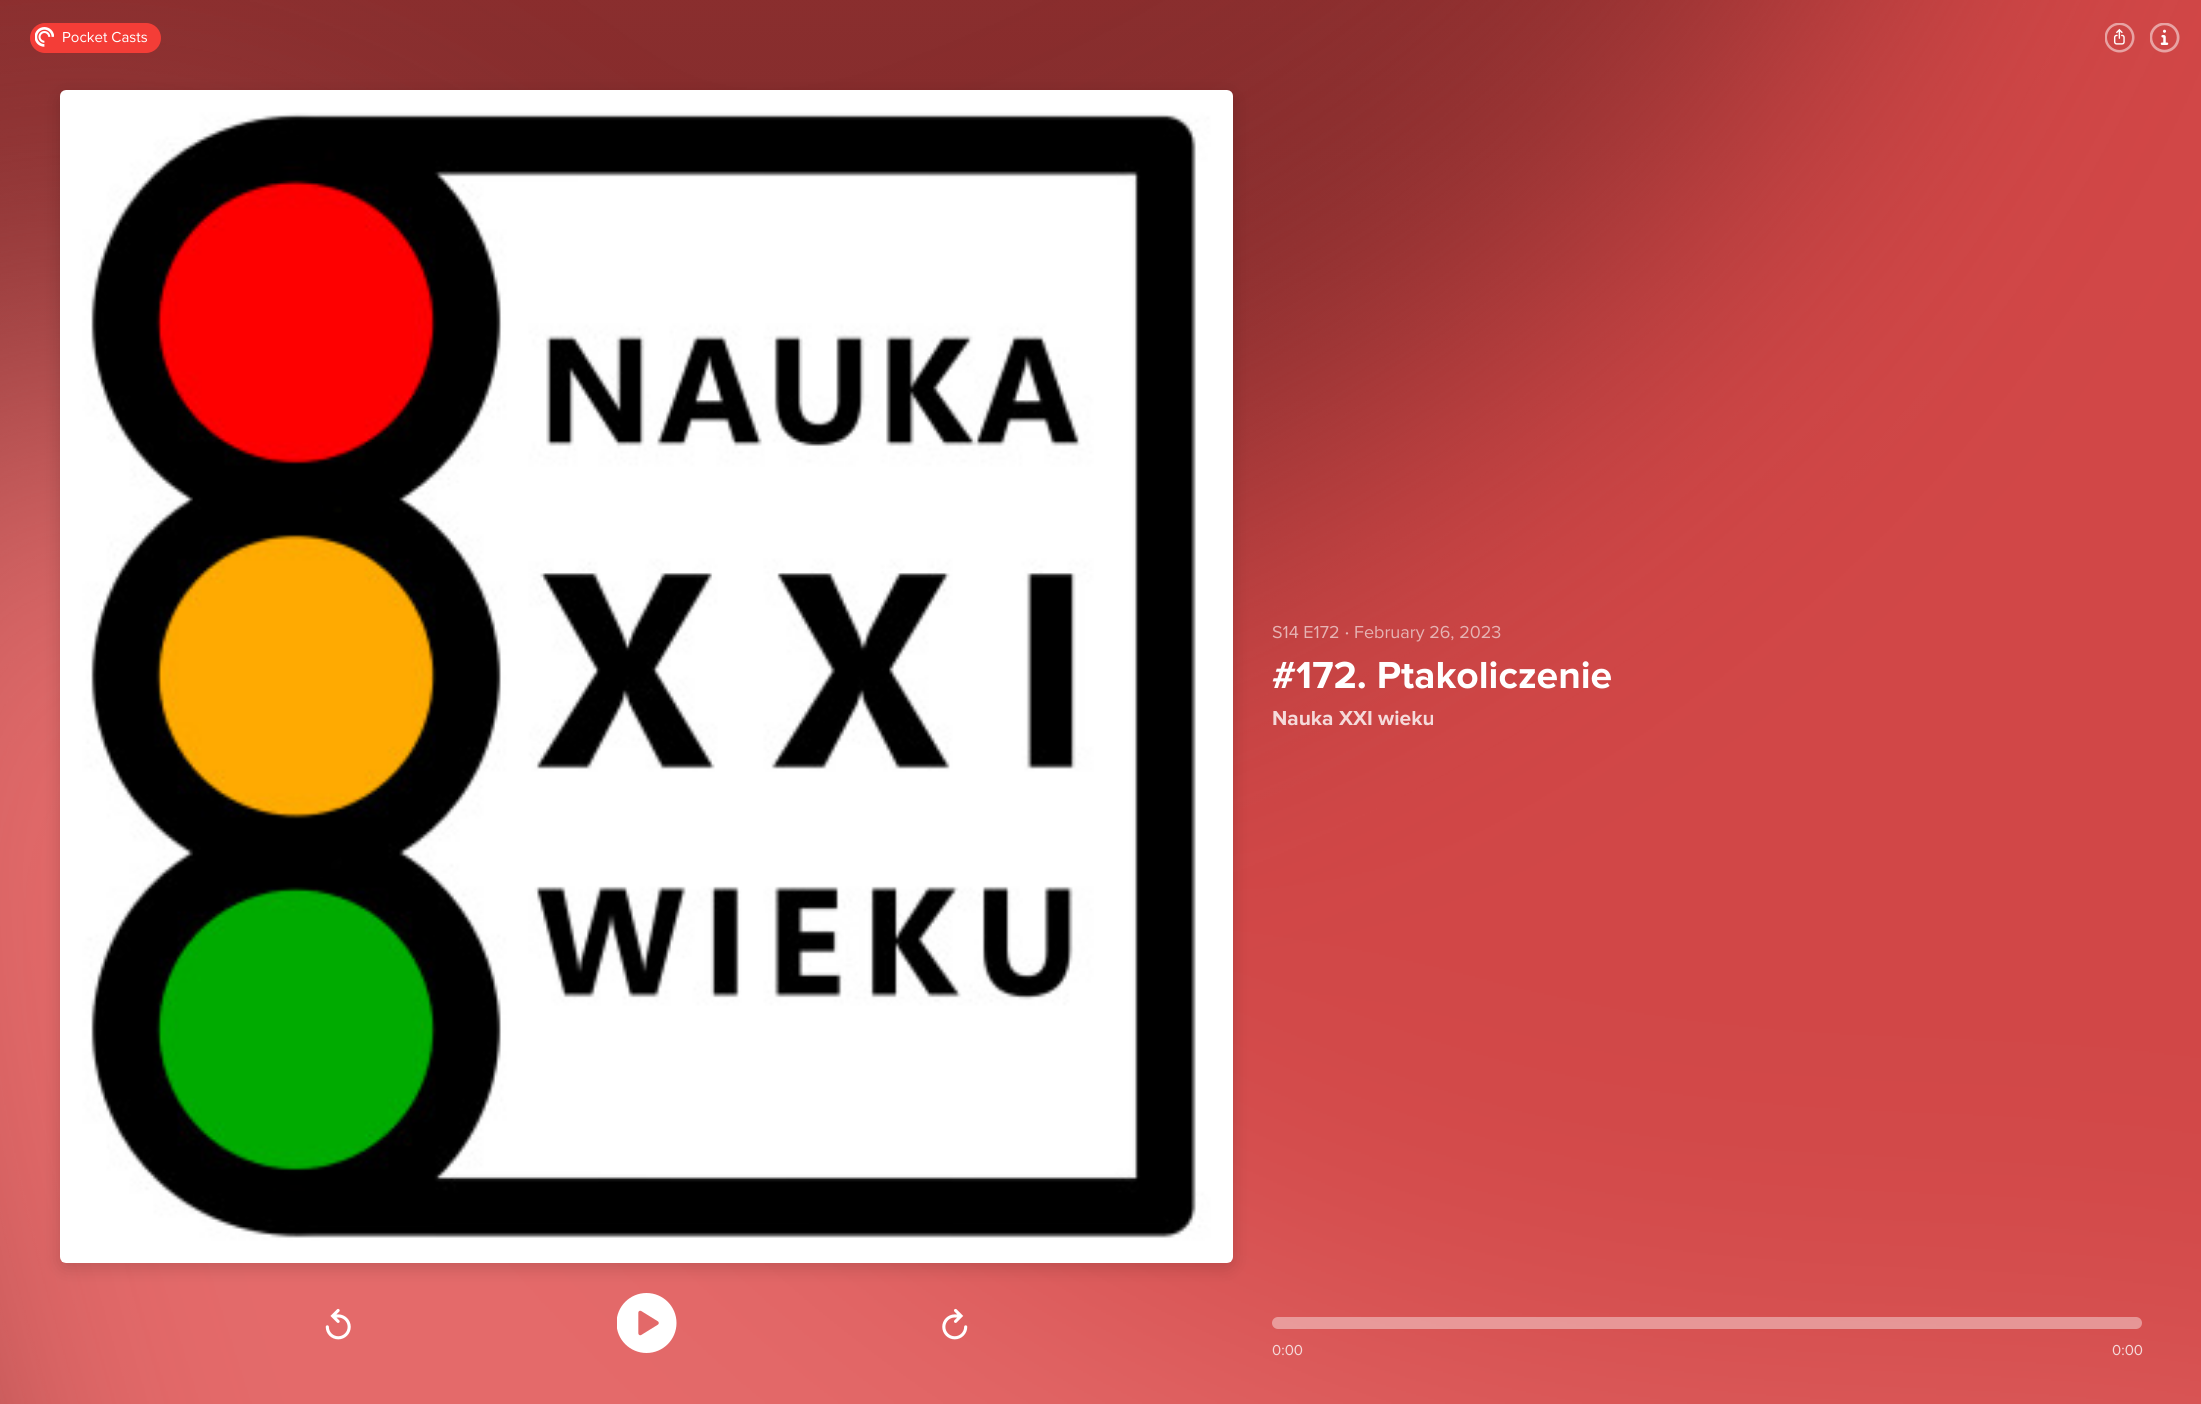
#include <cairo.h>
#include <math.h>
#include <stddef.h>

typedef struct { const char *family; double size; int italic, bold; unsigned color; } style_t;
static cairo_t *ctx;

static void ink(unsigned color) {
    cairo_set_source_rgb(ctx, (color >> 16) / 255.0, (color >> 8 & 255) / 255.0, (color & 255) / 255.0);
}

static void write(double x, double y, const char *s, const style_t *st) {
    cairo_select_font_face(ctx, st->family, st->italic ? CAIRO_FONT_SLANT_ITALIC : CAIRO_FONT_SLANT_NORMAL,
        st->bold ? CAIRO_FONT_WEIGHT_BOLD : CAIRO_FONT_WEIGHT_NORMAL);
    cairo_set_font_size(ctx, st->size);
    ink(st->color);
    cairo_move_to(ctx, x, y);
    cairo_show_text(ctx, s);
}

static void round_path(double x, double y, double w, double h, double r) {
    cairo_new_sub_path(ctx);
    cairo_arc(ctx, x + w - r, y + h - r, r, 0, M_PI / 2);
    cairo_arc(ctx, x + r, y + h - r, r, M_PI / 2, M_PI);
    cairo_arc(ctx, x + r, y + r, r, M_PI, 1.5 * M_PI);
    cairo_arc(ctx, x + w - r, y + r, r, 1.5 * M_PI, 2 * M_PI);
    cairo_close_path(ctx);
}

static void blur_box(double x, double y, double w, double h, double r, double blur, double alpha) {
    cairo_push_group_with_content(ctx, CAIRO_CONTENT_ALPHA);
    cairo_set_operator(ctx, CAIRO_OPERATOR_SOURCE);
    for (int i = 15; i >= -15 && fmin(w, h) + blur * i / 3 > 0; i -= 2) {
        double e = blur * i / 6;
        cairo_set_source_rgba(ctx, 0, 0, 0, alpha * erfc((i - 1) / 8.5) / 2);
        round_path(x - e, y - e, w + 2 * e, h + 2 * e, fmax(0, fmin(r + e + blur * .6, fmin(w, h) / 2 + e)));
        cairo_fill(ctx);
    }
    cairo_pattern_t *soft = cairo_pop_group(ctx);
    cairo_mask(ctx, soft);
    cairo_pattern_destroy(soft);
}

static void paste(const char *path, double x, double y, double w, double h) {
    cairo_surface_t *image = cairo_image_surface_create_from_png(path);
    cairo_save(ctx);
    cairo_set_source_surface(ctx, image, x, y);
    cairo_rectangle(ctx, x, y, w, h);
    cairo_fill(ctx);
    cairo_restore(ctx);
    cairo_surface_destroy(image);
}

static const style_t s1 = {"Proxima Nova", 15, 0, 0, 0xffffff};
static const style_t s2 = {"Proxima Nova", 18, 0, 0, 0xe6b3b3};
static const style_t s3 = {"Proxima Nova", 11, 0, 0, 0xe6b3b3};
static const style_t s4 = {"Proxima Nova", 39, 0, 1, 0xffffff};
static const style_t s5 = {"Proxima Nova", 21, 0, 1, 0xf5dada};
static const style_t s6 = {"Proxima Nova", 15, 0, 0, 0xf5dada};

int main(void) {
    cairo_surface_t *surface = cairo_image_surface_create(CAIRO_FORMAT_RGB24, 2201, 1404);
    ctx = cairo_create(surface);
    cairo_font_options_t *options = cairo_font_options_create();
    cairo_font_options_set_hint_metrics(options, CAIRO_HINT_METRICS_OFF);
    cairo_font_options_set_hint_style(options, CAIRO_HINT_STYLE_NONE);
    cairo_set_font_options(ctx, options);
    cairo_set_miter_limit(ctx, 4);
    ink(0xffffff);
    cairo_paint(ctx);
    paste("pic1.png", 0, 0, 2201, 1404);
    ink(0xf43d37);
    round_path(30, 23, 131, 30, 15);
    cairo_fill(ctx);
    paste("pic2.png", 35, 27, 19, 20);
    write(62, 42, "Pocket Casts", &s1);
    paste("pic3.png", 2105, 23, 30, 30);
    paste("pic4.png", 2150, 23, 30, 30);
    ink(0x000000);
    blur_box(60, 95, 1173, 1173, 6, 9, 0.15);
    paste("pic5.png", 60, 90, 1173, 1173);
    write(1272, 638, "S14 E172", &s2);
    write(1345, 636, "•", &s3);
    write(1354, 638, "February 26, 2023", &s2);
    write(1272, 688, "#172. Ptakoliczenie", &s4);
    write(1272, 725, "Nauka XXI wieku", &s5);
    paste("pic6.png", 325, 1308, 26, 32);
    paste("pic7.png", 617, 1293, 60, 60);
    paste("pic8.png", 942, 1308, 26, 32);
    cairo_set_source_rgba(ctx, 1, 1, 1, 0.4);
    round_path(1272, 1317, 870, 12, 6);
    cairo_fill(ctx);
    write(1272, 1355, "0:00", &s6);
    write(2112, 1355, "0:00", &s6);
    cairo_surface_write_to_png(surface, "screenshot.png");
    cairo_font_options_destroy(options);
    cairo_destroy(ctx);
    cairo_surface_destroy(surface);
    return 0;
}
